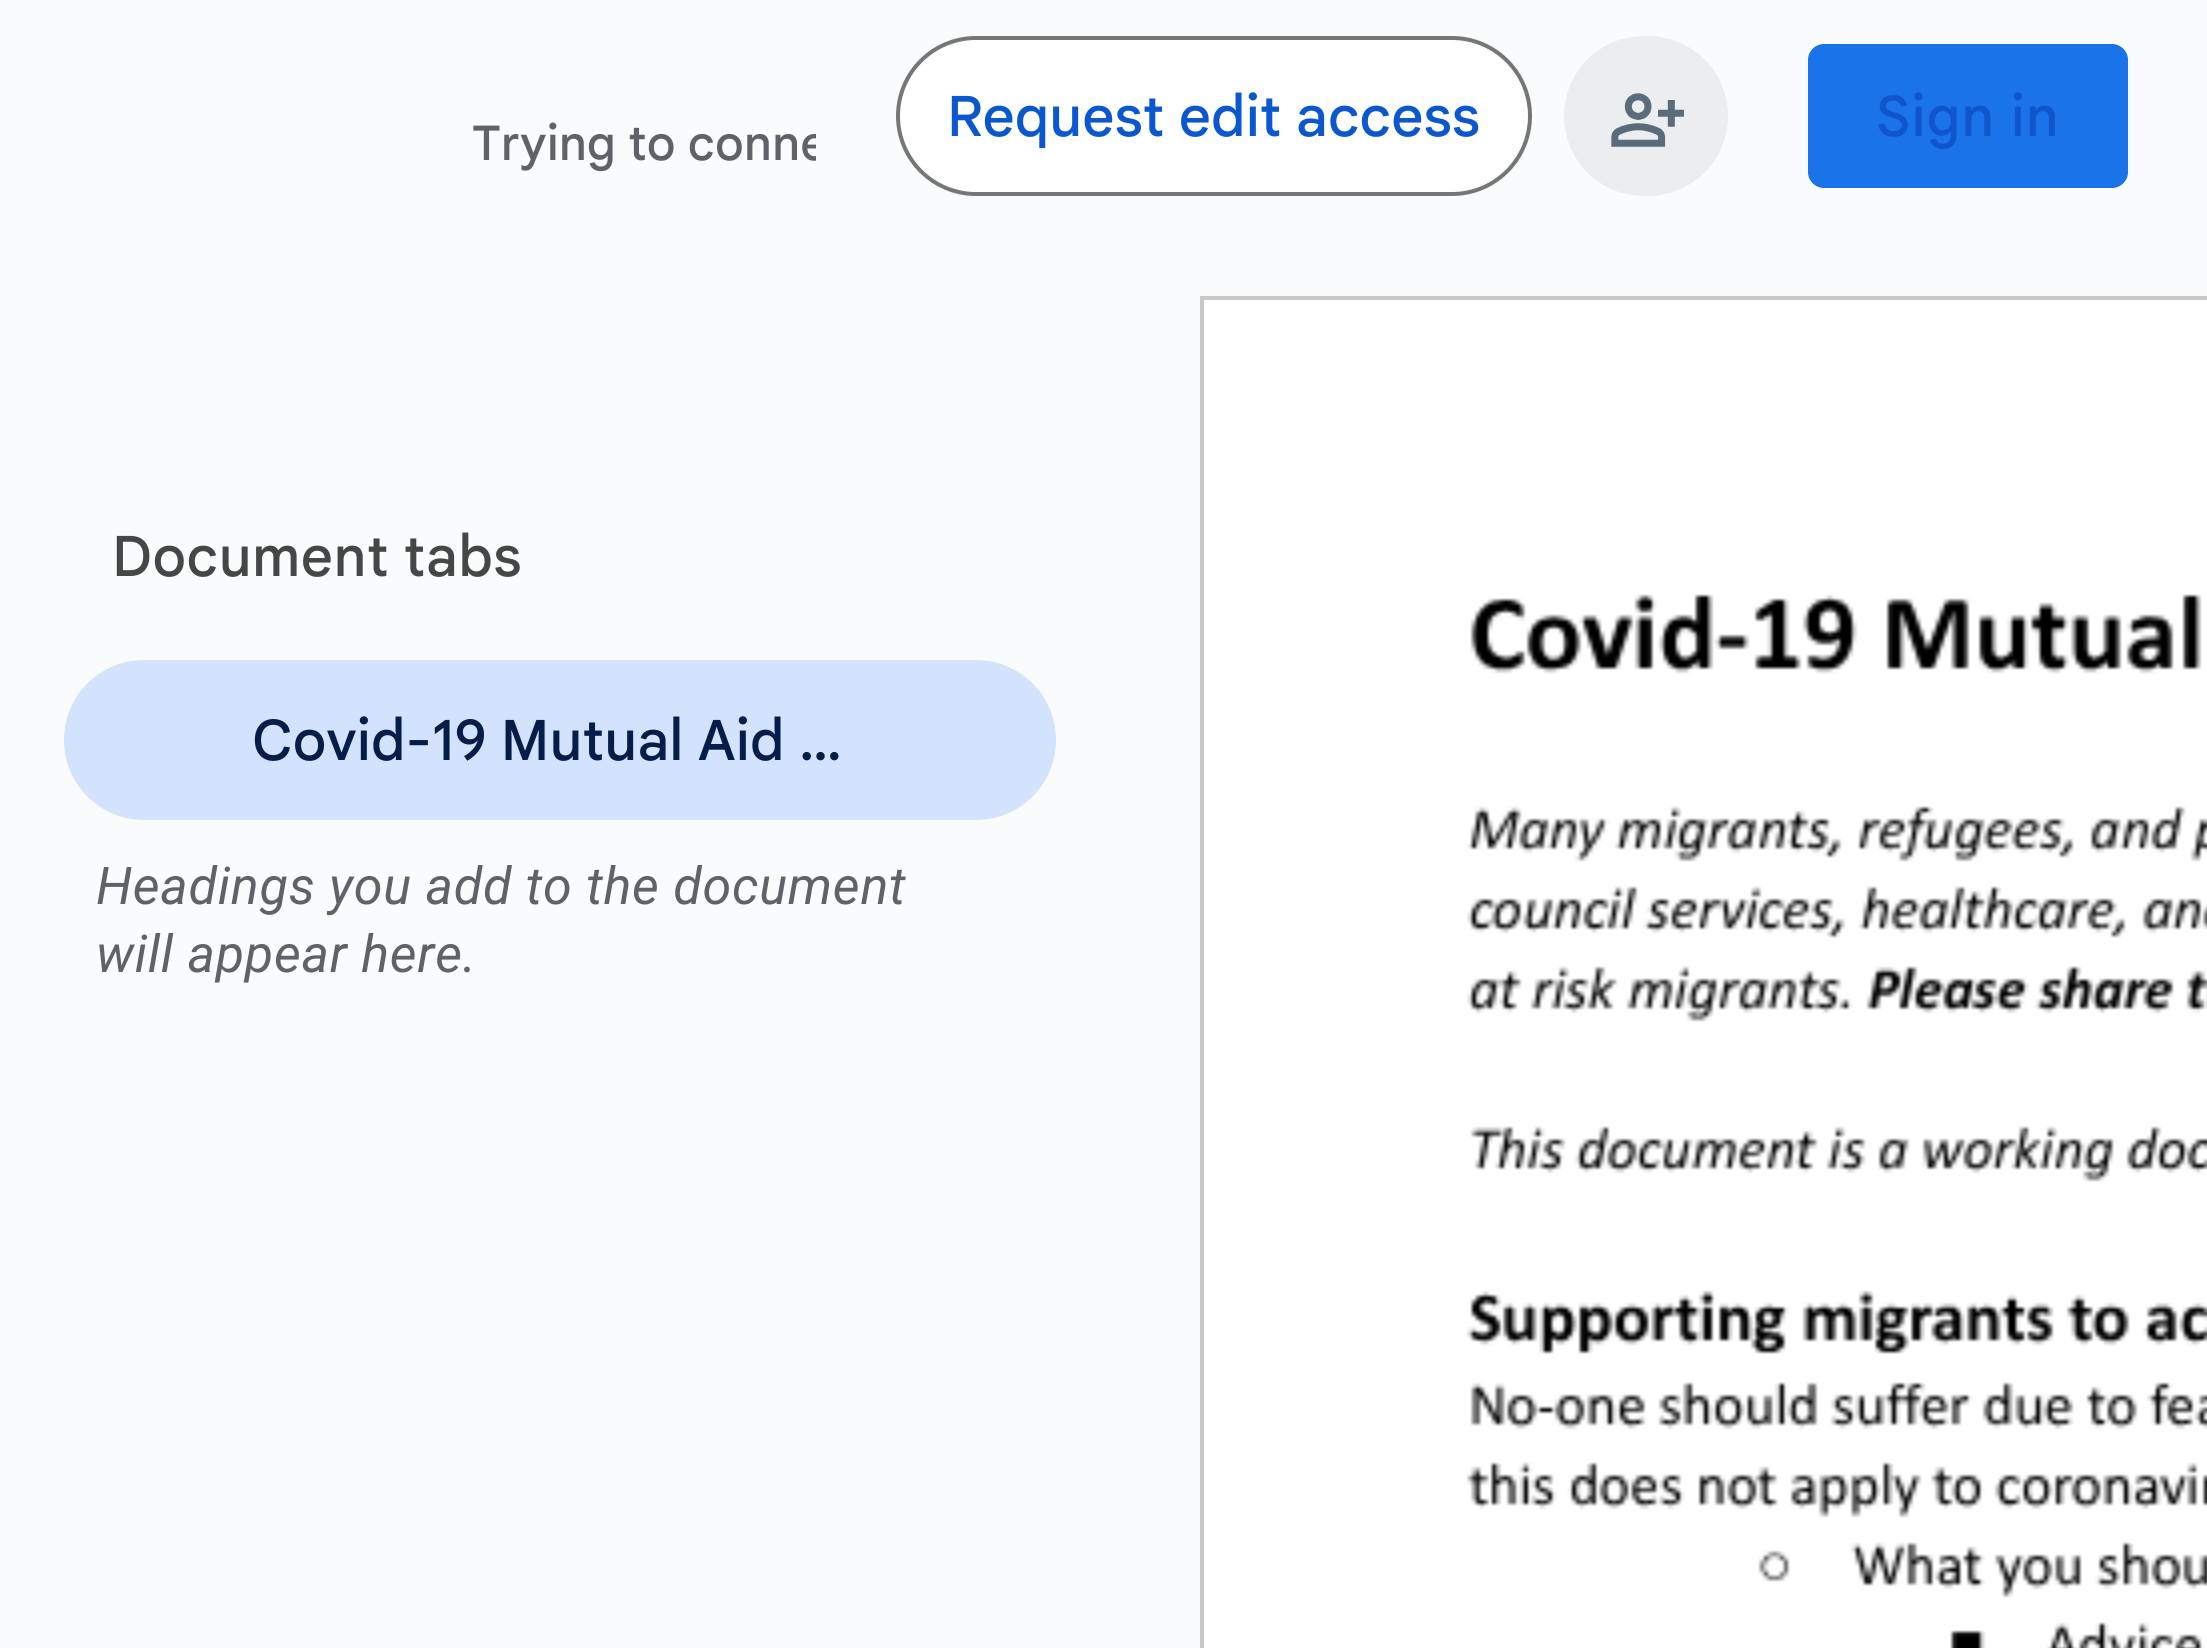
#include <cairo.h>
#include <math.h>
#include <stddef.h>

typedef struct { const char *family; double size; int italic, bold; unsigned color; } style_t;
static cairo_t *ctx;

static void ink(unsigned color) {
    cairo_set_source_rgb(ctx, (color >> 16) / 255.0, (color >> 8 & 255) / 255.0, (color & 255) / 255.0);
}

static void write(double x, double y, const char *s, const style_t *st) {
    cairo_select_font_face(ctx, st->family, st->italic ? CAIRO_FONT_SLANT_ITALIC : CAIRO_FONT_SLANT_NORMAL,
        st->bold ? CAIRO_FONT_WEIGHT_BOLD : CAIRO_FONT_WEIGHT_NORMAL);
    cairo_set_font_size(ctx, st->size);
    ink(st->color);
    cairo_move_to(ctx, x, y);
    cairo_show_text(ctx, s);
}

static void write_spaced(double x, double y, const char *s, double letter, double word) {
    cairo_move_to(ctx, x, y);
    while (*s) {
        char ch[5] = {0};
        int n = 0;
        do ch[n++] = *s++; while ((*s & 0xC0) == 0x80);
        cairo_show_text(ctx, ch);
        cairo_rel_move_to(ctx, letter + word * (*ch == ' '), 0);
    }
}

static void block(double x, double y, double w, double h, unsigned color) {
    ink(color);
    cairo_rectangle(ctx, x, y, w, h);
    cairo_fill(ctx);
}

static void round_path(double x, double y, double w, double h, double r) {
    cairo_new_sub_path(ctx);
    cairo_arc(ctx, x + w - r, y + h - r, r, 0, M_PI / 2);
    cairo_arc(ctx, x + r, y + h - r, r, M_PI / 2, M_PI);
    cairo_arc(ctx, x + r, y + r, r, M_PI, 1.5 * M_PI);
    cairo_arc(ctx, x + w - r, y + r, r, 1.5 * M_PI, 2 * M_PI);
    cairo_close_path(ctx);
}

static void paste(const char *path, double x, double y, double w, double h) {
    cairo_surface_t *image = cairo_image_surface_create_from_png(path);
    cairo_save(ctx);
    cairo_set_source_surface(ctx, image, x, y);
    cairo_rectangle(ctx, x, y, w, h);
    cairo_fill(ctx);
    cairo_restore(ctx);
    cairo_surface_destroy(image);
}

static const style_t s1 = {"Google Sans Medium", 48, 0, 0, 0x5f6368};
static const style_t s2 = {"Google Sans Medium", 56, 0, 0, 0x0b57d0};
static const style_t s3 = {"Google Sans Medium", 56, 0, 0, 0x041e49};

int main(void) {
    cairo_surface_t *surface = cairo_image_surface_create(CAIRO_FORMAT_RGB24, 2207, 1648);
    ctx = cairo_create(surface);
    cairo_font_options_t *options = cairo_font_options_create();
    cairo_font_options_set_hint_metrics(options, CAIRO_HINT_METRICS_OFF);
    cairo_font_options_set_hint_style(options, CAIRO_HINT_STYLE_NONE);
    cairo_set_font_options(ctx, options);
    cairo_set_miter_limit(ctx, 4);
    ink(0xf9fbfd);
    cairo_paint(ctx);
    write(472, 160, "Trying to conne", &s1);
    block(816, 134, 10, 27, 0xf9fbfd);
    ink(0xffffff);
    round_path(898, 38, 632, 156, 78);
    cairo_fill_preserve(ctx);
    ink(0x747775);
    cairo_set_line_width(ctx, 4);
    cairo_stroke(ctx);
    write(947, 136, "Request edit access", &s2);
    ink(0xecedee);
    round_path(1564, 36, 164, 160, 80);
    cairo_fill(ctx);
    paste("pic1.png", 1611, 93, 73, 54);
    ink(0x1a73e8);
    round_path(1808, 44, 320, 144, 16);
    cairo_fill(ctx);
    ink(0x1155cc);
    write_spaced(1876, 136, "Sign in", 1, 0);
    ink(0x444746);
    write_spaced(112, 576, "Document tabs", 0.4, 0);
    ink(0xd3e3fd);
    round_path(64, 660, 992, 160, 80);
    cairo_fill(ctx);
    write(252, 760, "Covid-19 Mutual Aid …", &s3);
    cairo_select_font_face(ctx, "Roboto", CAIRO_FONT_SLANT_ITALIC, CAIRO_FONT_WEIGHT_NORMAL);
    cairo_set_font_size(ctx, 52);
    ink(0x5f6368);
    write_spaced(96, 904, "Headings you add to the document", 0.8, 0);
    write_spaced(96, 972, "will appear here.", 0.8, 0);
    cairo_rectangle(ctx, 1202, 298, 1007, 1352);
    ink(0xc7c7c7);
    cairo_stroke(ctx);
    paste("pic2.png", 1204, 300, 1003, 1348);
    cairo_surface_write_to_png(surface, "screenshot.png");
    cairo_font_options_destroy(options);
    cairo_destroy(ctx);
    cairo_surface_destroy(surface);
    return 0;
}
